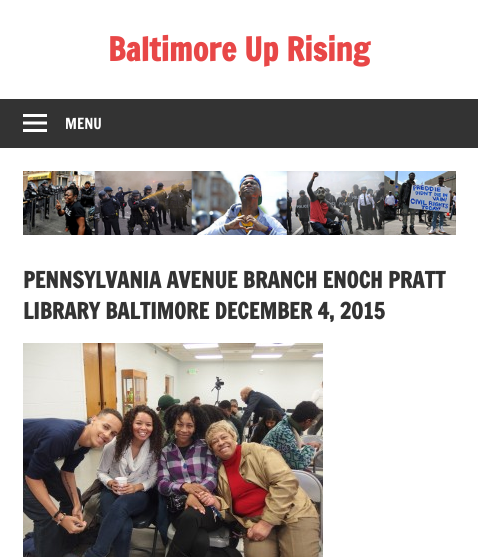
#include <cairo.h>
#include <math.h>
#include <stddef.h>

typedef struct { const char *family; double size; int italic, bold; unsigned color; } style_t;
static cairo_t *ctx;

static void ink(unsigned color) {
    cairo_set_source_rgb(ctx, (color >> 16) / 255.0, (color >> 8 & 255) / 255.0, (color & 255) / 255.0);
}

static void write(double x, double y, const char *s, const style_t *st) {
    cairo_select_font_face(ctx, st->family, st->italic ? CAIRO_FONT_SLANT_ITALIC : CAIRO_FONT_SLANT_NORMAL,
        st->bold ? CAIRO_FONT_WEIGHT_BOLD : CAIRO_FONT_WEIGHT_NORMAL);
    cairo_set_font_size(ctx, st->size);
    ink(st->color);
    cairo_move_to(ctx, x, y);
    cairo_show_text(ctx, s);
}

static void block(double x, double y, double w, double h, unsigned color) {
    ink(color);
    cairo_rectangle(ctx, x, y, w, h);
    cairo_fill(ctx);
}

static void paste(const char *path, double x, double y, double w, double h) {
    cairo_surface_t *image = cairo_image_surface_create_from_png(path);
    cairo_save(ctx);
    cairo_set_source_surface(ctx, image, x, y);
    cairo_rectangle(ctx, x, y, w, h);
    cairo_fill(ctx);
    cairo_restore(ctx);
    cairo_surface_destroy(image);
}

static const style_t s1 = {"Francois One", 32, 0, 1, 0xe84747};
static const style_t s2 = {"Francois One", 15, 0, 0, 0xffffff};
static const style_t s3 = {"Francois One", 22, 0, 1, 0x333333};

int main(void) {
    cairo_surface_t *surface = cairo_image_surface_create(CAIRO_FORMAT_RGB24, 478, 557);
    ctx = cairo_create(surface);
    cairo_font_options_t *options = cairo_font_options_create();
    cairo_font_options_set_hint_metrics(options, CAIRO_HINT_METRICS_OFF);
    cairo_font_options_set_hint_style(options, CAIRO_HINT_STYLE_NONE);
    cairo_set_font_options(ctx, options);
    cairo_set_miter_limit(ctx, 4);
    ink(0xffffff);
    cairo_paint(ctx);
    write(108, 61, "Baltimore Up Rising", &s1);
    block(0, 99, 478, 49, 0x333333);
    paste("pic1.png", 23, 114, 24, 18);
    write(65, 129, "MENU", &s2);
    paste("pic2.png", 23, 171, 433, 64);
    write(23, 288, "PENNSYLVANIA AVENUE BRANCH ENOCH PRATT", &s3);
    write(23, 319, "LIBRARY BALTIMORE DECEMBER 4, 2015", &s3);
    paste("pic3.png", 23, 343, 300, 214);
    cairo_surface_write_to_png(surface, "screenshot.png");
    cairo_font_options_destroy(options);
    cairo_destroy(ctx);
    cairo_surface_destroy(surface);
    return 0;
}
